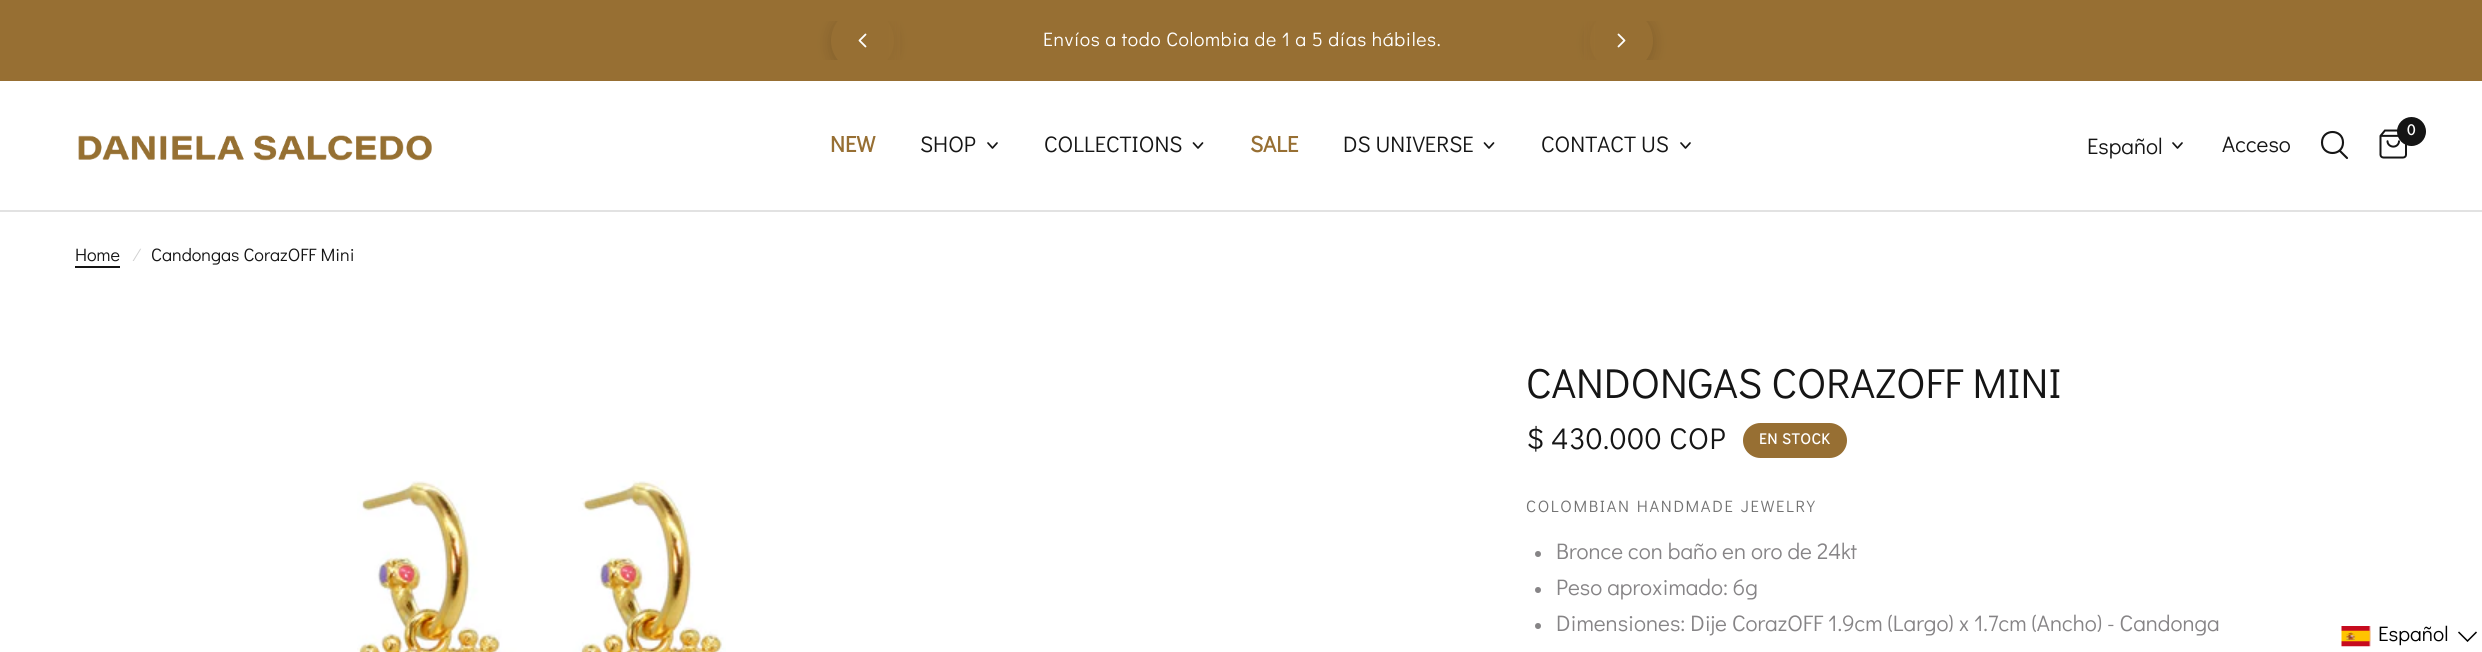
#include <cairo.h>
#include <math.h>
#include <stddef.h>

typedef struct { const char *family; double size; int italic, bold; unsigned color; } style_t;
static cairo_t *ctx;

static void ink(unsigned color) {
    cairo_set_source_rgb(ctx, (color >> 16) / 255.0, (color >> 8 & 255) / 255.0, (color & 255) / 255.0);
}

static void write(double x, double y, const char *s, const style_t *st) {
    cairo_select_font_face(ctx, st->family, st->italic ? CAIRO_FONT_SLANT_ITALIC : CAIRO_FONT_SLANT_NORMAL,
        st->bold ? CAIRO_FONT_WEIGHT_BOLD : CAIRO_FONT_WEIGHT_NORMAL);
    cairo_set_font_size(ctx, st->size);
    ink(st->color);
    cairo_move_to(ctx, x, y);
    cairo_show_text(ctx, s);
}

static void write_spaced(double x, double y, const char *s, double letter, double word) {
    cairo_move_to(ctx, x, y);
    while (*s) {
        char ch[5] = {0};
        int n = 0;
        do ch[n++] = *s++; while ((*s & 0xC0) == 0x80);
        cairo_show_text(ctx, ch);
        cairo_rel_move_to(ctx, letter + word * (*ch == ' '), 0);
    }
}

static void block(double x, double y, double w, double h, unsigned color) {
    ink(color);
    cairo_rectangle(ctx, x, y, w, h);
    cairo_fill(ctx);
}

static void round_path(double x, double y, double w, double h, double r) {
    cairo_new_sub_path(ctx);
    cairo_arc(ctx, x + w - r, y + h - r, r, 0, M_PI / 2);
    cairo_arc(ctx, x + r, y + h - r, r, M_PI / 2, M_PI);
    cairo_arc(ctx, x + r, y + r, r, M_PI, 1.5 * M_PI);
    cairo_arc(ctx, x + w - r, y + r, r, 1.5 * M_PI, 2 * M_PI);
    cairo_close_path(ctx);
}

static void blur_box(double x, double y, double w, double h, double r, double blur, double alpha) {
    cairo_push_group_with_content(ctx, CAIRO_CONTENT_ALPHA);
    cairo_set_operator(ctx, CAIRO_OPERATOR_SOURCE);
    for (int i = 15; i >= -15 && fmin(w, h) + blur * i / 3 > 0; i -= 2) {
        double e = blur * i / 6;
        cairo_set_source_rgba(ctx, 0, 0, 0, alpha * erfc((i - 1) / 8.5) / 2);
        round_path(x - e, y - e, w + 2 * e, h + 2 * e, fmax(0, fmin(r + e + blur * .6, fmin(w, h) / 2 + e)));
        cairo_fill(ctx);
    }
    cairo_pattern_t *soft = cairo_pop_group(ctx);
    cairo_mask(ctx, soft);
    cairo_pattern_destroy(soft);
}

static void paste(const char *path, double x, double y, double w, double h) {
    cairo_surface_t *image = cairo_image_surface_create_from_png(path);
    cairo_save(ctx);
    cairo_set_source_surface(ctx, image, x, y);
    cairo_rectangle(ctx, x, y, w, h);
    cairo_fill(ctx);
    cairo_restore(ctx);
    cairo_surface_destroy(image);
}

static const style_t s1 = {"Didact Gothic", 22.5, 0, 1, 0x976f33};
static const style_t s2 = {"Didact Gothic", 22.5, 0, 0, 0x151515};
static const style_t s3 = {"Didact Gothic", 15, 0, 1, 0xffffff};
static const style_t s4 = {"Didact Gothic", 18, 0, 0, 0x151515};
static const style_t s5 = {"Didact Gothic", 18, 1, 0, 0xd0d0d0};
static const style_t s6 = {"Didact Gothic", 42, 0, 0, 0x151515};
static const style_t s7 = {"Didact Gothic", 22.5, 0, 0, 0x868486};
static const style_t s8 = {"Didact Gothic", 21, 0, 0, 0x000000};

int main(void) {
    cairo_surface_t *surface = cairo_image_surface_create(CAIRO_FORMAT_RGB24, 2482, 652);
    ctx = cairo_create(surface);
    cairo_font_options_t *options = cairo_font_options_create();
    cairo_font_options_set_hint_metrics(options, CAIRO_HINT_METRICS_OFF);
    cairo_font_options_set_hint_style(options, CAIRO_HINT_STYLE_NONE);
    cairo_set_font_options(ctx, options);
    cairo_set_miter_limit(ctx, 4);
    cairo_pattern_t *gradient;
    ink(0xffffff);
    cairo_paint(ctx);
    block(0, 0, 2482, 81, 0x976f33);
    cairo_save(ctx);
    cairo_rectangle(ctx, 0, 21, 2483, 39);
    cairo_clip(ctx);
    ink(0x000000);
    blur_box(831, 12, 63, 63, 31.5, 7.5, 0.15);
    cairo_restore(ctx);
    cairo_save(ctx);
    cairo_rectangle(ctx, 0, 21, 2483, 39);
    cairo_clip(ctx);
    cairo_arc(ctx, 862.5, 40.5, 31.5, 0, 2 * M_PI);
    cairo_fill(ctx);
    cairo_restore(ctx);
    cairo_new_path(ctx);
    cairo_move_to(ctx, 865.5, 34.5);
    cairo_line_to(ctx, 859.5, 40.5);
    cairo_line_to(ctx, 865.5, 46.5);
    ink(0xffffff);
    cairo_set_line_width(ctx, 1.8);
    cairo_set_line_cap(ctx, CAIRO_LINE_CAP_ROUND);
    cairo_set_line_join(ctx, CAIRO_LINE_JOIN_ROUND);
    cairo_stroke(ctx);
    gradient = cairo_pattern_create_linear(942, 41, 867, 41);
    cairo_pattern_add_color_stop_rgba(gradient, 0, 0.592, 0.435, 0.2, 0);
    cairo_pattern_add_color_stop_rgba(gradient, 1, 0.592, 0.435, 0.2, 1);
    cairo_set_source(ctx, gradient);
    cairo_pattern_destroy(gradient);
    cairo_rectangle(ctx, 887, 21, 13, 39);
    cairo_fill(ctx);
    cairo_save(ctx);
    cairo_rectangle(ctx, 867, 32, 750, 19);
    cairo_clip(ctx);
    cairo_select_font_face(ctx, "Didact Gothic", CAIRO_FONT_SLANT_NORMAL, CAIRO_FONT_WEIGHT_NORMAL);
    cairo_set_font_size(ctx, 19.5);
    ink(0xffffff);
    write_spaced(1043, 46, "Envíos a todo Colombia de 1 a 5 días hábiles.", 0.6, 0);
    cairo_restore(ctx);
    cairo_save(ctx);
    cairo_rectangle(ctx, 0, 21, 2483, 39);
    cairo_clip(ctx);
    ink(0x000000);
    blur_box(1590, 12, 63, 63, 31.5, 7.5, 0.15);
    cairo_restore(ctx);
    cairo_save(ctx);
    cairo_rectangle(ctx, 0, 21, 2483, 39);
    cairo_clip(ctx);
    ink(0x976f33);
    cairo_arc(ctx, 1621.5, 40.5, 31.5, 0, 2 * M_PI);
    cairo_fill(ctx);
    cairo_restore(ctx);
    gradient = cairo_pattern_create_linear(1542, 41, 1617, 41);
    cairo_pattern_add_color_stop_rgba(gradient, 0, 0.592, 0.435, 0.2, 0);
    cairo_pattern_add_color_stop_rgba(gradient, 1, 0.592, 0.435, 0.2, 1);
    cairo_set_source(ctx, gradient);
    cairo_pattern_destroy(gradient);
    cairo_rectangle(ctx, 1584, 21, 13, 39);
    cairo_fill(ctx);
    cairo_new_path(ctx);
    cairo_move_to(ctx, 1618.5, 34.5);
    cairo_line_to(ctx, 1624.5, 40.5);
    cairo_line_to(ctx, 1618.5, 46.5);
    ink(0xffffff);
    cairo_stroke(ctx);
    block(0, 210, 2482, 2, 0xe2e2e2);
    paste("pic1.png", 78, 135, 354, 26);
    write(830, 152, "NEW", &s1);
    write(920, 152, "SHOP", &s2);
    cairo_new_path(ctx);
    cairo_move_to(ctx, 997, 143);
    cairo_line_to(ctx, 992.5, 148);
    cairo_line_to(ctx, 988, 143);
    cairo_set_line_width(ctx, 1.7);
    cairo_stroke(ctx);
    write(1044, 152, "COLLECTIONS", &s2);
    cairo_new_path(ctx);
    cairo_move_to(ctx, 1202.5, 143);
    cairo_line_to(ctx, 1198, 148);
    cairo_line_to(ctx, 1193.5, 143);
    cairo_stroke(ctx);
    write(1250, 152, "SALE", &s1);
    write(1343, 152, "DS UNIVERSE", &s2);
    cairo_new_path(ctx);
    cairo_move_to(ctx, 1493.5, 143);
    cairo_line_to(ctx, 1489, 148);
    cairo_line_to(ctx, 1484.5, 143);
    cairo_stroke(ctx);
    write(1541, 152, "CONTACT US", &s2);
    cairo_new_path(ctx);
    cairo_move_to(ctx, 1690, 143);
    cairo_line_to(ctx, 1685.5, 148);
    cairo_line_to(ctx, 1681, 143);
    cairo_stroke(ctx);
    write(2087, 154, "Español", &s2);
    cairo_new_path(ctx);
    cairo_move_to(ctx, 2182, 143);
    cairo_line_to(ctx, 2177.5, 148);
    cairo_line_to(ctx, 2173, 143);
    cairo_stroke(ctx);
    write(2222, 152, "Acceso", &s2);
    cairo_new_path(ctx);
    cairo_move_to(ctx, 2340, 151);
    cairo_line_to(ctx, 2347, 158);
    cairo_move_to(ctx, 2343, 142.5);
    cairo_curve_to(ctx, 2343, 156.5, 2322, 156.5, 2322, 142.5);
    cairo_curve_to(ctx, 2322, 128.5, 2343, 128.5, 2343, 142.5);
    cairo_close_path(ctx);
    cairo_set_line_width(ctx, 2.1);
    cairo_stroke(ctx);
    paste("pic2.png", 2379, 129, 28, 30);
    cairo_arc(ctx, 2411.5, 131.5, 14.5, 0, 2 * M_PI);
    cairo_fill(ctx);
    write(2407, 135, "0", &s3);
    write(75, 261, "Home", &s4);
    block(75, 266, 45, 2, 0x151515);
    write(132, 261, "/", &s5);
    write(151, 261, "Candongas CorazOFF Mini", &s4);
    paste("pic3.png", 357, 480, 369, 172);
    write(1526, 398, "CANDONGAS CORAZOFF MINI", &s6);
    cairo_set_font_size(ctx, 30);
    write_spaced(1526, 449, "$ 430.000 COP", 0.6, 0);
    ink(0x976f33);
    round_path(1743, 423, 104, 35, 17.5);
    cairo_fill(ctx);
    cairo_select_font_face(ctx, "Didact Gothic", CAIRO_FONT_SLANT_NORMAL, CAIRO_FONT_WEIGHT_BOLD);
    cairo_set_font_size(ctx, 15);
    ink(0xffffff);
    write_spaced(1759, 444, "EN STOCK", 0.75, 0);
    cairo_select_font_face(ctx, "Didact Gothic", CAIRO_FONT_SLANT_NORMAL, CAIRO_FONT_WEIGHT_NORMAL);
    cairo_set_font_size(ctx, 16.5);
    ink(0x737373);
    write_spaced(1526, 512, "COLOMBIAN HANDMADE JEWELRY", 1.65, 1);
    ink(0x868486);
    cairo_new_path(ctx);
    cairo_arc(ctx, 1538, 554, 3, 0, 2 * M_PI);
    cairo_fill(ctx);
    write(1556, 559, "Bronce con baño en oro de 24kt", &s7);
    cairo_new_path(ctx);
    cairo_arc(ctx, 1538, 590, 3, 0, 2 * M_PI);
    cairo_fill(ctx);
    write(1556, 595, "Peso aproximado: 6g", &s7);
    cairo_new_path(ctx);
    cairo_arc(ctx, 1538, 626, 3, 0, 2 * M_PI);
    cairo_fill(ctx);
    write(1556, 631, "Dimensiones: Dije CorazOFF 1.9cm (Largo) x 1.7cm (Ancho) - Candonga", &s7);
    paste("pic4.png", 2341, 626, 30, 21);
    write(2378, 641, "Español", &s8);
    cairo_new_path(ctx);
    cairo_move_to(ctx, 2458.5, 632);
    cairo_line_to(ctx, 2467.5, 641);
    cairo_line_to(ctx, 2476.5, 632);
    cairo_set_line_width(ctx, 1.5);
    cairo_set_line_cap(ctx, CAIRO_LINE_CAP_BUTT);
    cairo_set_line_join(ctx, CAIRO_LINE_JOIN_MITER);
    cairo_stroke(ctx);
    cairo_surface_write_to_png(surface, "screenshot.png");
    cairo_font_options_destroy(options);
    cairo_destroy(ctx);
    cairo_surface_destroy(surface);
    return 0;
}
